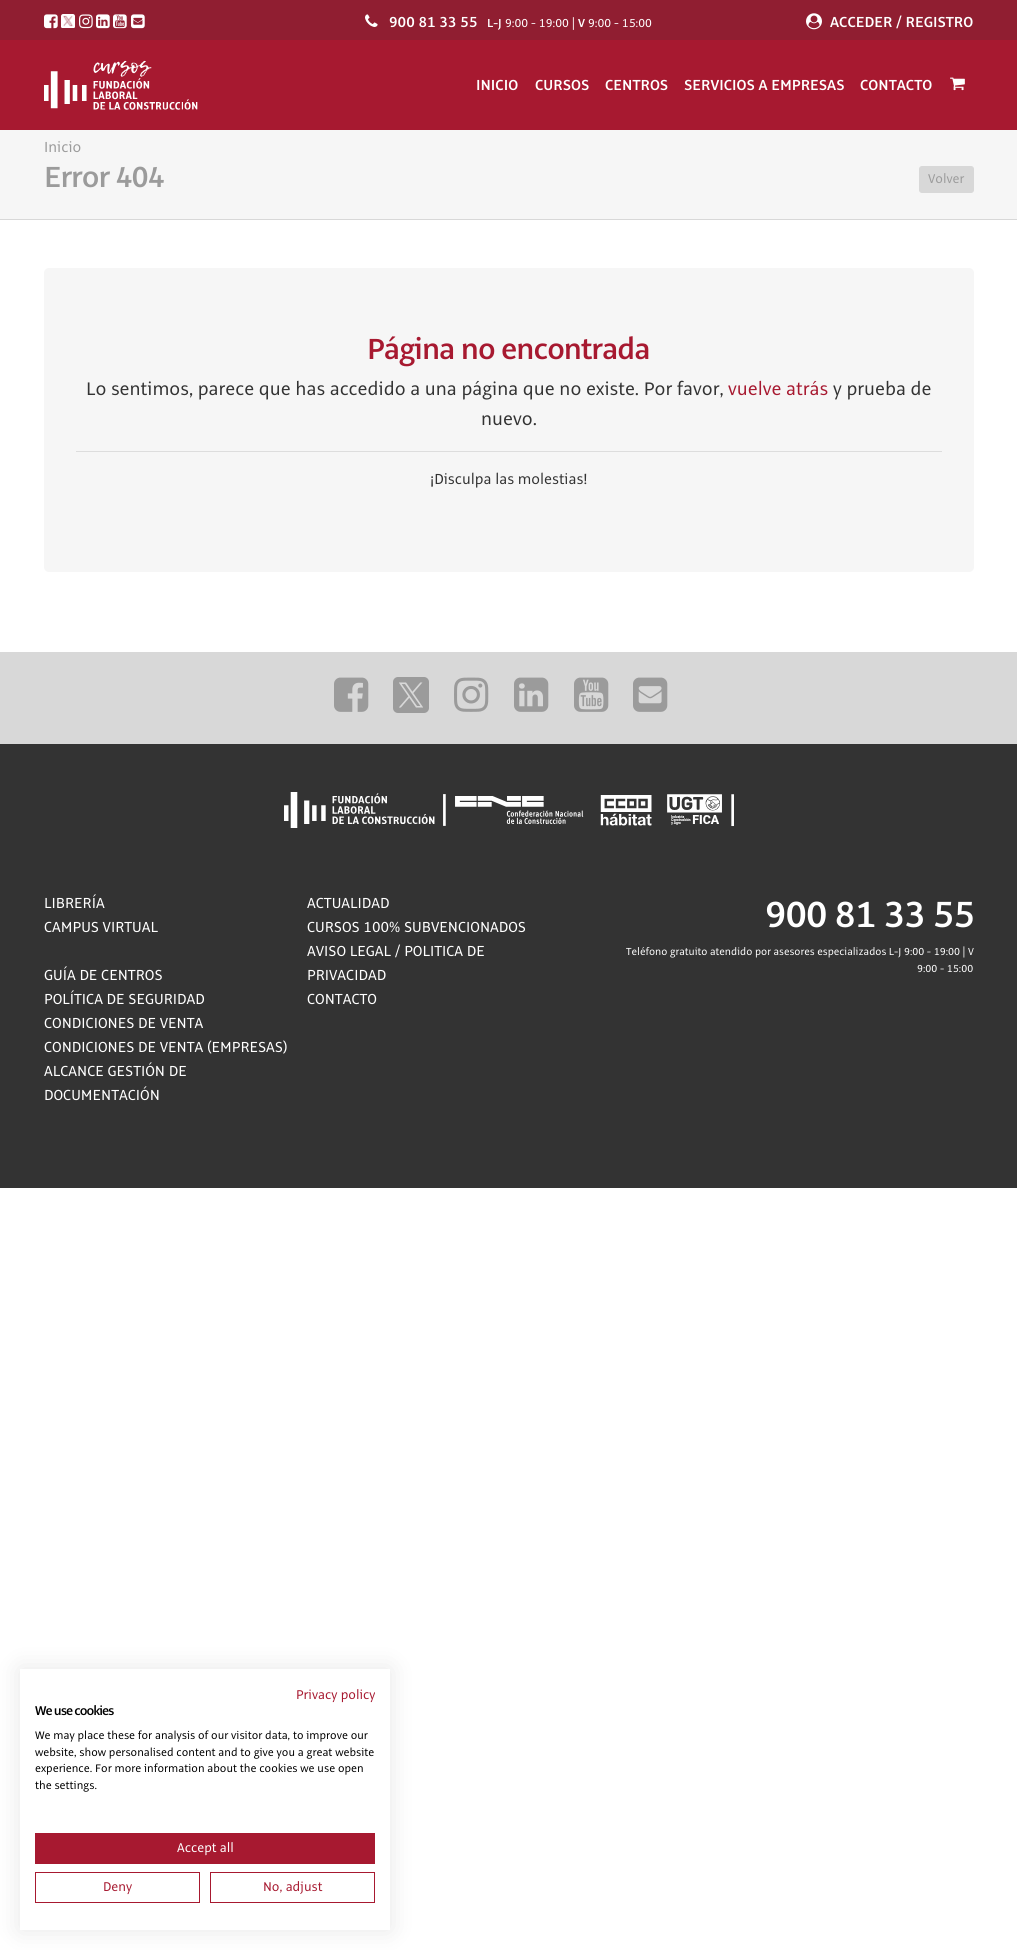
#include <cairo.h>
#include <math.h>
#include <stddef.h>

typedef struct { const char *family; double size; int italic, bold; unsigned color; } style_t;
static cairo_t *ctx;

static void ink(unsigned color) {
    cairo_set_source_rgb(ctx, (color >> 16) / 255.0, (color >> 8 & 255) / 255.0, (color & 255) / 255.0);
}

static void write(double x, double y, const char *s, const style_t *st) {
    cairo_select_font_face(ctx, st->family, st->italic ? CAIRO_FONT_SLANT_ITALIC : CAIRO_FONT_SLANT_NORMAL,
        st->bold ? CAIRO_FONT_WEIGHT_BOLD : CAIRO_FONT_WEIGHT_NORMAL);
    cairo_set_font_size(ctx, st->size);
    ink(st->color);
    cairo_move_to(ctx, x, y);
    cairo_show_text(ctx, s);
}

static void write_spaced(double x, double y, const char *s, double letter, double word) {
    cairo_move_to(ctx, x, y);
    while (*s) {
        char ch[5] = {0};
        int n = 0;
        do ch[n++] = *s++; while ((*s & 0xC0) == 0x80);
        cairo_show_text(ctx, ch);
        cairo_rel_move_to(ctx, letter + word * (*ch == ' '), 0);
    }
}

static void block(double x, double y, double w, double h, unsigned color) {
    ink(color);
    cairo_rectangle(ctx, x, y, w, h);
    cairo_fill(ctx);
}

static void round_path(double x, double y, double w, double h, double r) {
    cairo_new_sub_path(ctx);
    cairo_arc(ctx, x + w - r, y + h - r, r, 0, M_PI / 2);
    cairo_arc(ctx, x + r, y + h - r, r, M_PI / 2, M_PI);
    cairo_arc(ctx, x + r, y + r, r, M_PI, 1.5 * M_PI);
    cairo_arc(ctx, x + w - r, y + r, r, 1.5 * M_PI, 2 * M_PI);
    cairo_close_path(ctx);
}

static void blur_box(double x, double y, double w, double h, double r, double blur, double alpha) {
    cairo_push_group_with_content(ctx, CAIRO_CONTENT_ALPHA);
    cairo_set_operator(ctx, CAIRO_OPERATOR_SOURCE);
    for (int i = 15; i >= -15 && fmin(w, h) + blur * i / 3 > 0; i -= 2) {
        double e = blur * i / 6;
        cairo_set_source_rgba(ctx, 0, 0, 0, alpha * erfc((i - 1) / 8.5) / 2);
        round_path(x - e, y - e, w + 2 * e, h + 2 * e, fmax(0, fmin(r + e + blur * .6, fmin(w, h) / 2 + e)));
        cairo_fill(ctx);
    }
    cairo_pattern_t *soft = cairo_pop_group(ctx);
    cairo_mask(ctx, soft);
    cairo_pattern_destroy(soft);
}

static void paste(const char *path, double x, double y, double w, double h) {
    cairo_surface_t *image = cairo_image_surface_create_from_png(path);
    cairo_save(ctx);
    cairo_set_source_surface(ctx, image, x, y);
    cairo_rectangle(ctx, x, y, w, h);
    cairo_fill(ctx);
    cairo_restore(ctx);
    cairo_surface_destroy(image);
}

static const style_t s1 = {"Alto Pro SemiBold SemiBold", 16, 0, 0, 0xffffff};
static const style_t s2 = {"Alto Pro SemiBold SemiBold", 12.75, 0, 0, 0xffffff};
static const style_t s3 = {"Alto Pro", 12.75, 0, 0, 0xffffff};
static const style_t s4 = {"Alto Pro", 16, 0, 0, 0x9b9b9b};
static const style_t s5 = {"Alto Pro", 14, 0, 0, 0x9b9b9b};
static const style_t s6 = {"Alto Pro", 20, 0, 0, 0x333333};
static const style_t s7 = {"Alto Pro", 20, 0, 0, 0xa71930};
static const style_t s8 = {"Alto Pro", 16, 0, 0, 0x333333};
static const style_t s9 = {"Alto Pro", 16, 0, 0, 0xffffff};
static const style_t s10 = {"Alto Pro", 11.2, 0, 0, 0xffffff};
static const style_t s11 = {"Alto Pro", 14, 0, 0, 0xa71930};
static const style_t s12 = {"Alto Pro", 12, 0, 0, 0x000000};
static const style_t s13 = {"Alto Pro", 14, 0, 0, 0xffffff};

int main(void) {
    cairo_surface_t *surface = cairo_image_surface_create(CAIRO_FORMAT_RGB24, 1017, 1950);
    ctx = cairo_create(surface);
    cairo_font_options_t *options = cairo_font_options_create();
    cairo_font_options_set_hint_metrics(options, CAIRO_HINT_METRICS_OFF);
    cairo_font_options_set_hint_style(options, CAIRO_HINT_STYLE_NONE);
    cairo_set_font_options(ctx, options);
    cairo_set_miter_limit(ctx, 4);
    ink(0xffffff);
    cairo_paint(ctx);
    block(0, 0, 1017, 40, 0x901e31);
    paste("pic1.png", 44, 14, 14, 15);
    paste("pic2.png", 61, 14, 14, 14);
    paste("pic3.png", 79, 14, 14, 15);
    paste("pic4.png", 96, 14, 14, 15);
    paste("pic5.png", 113, 14, 14, 15);
    paste("pic6.png", 131, 14, 14, 15);
    paste("pic7.png", 365, 14, 13, 13);
    write(389, 27, "900 81 33 55", &s1);
    write(487, 27, "L-J", &s2);
    write(505, 27, "9:00 - 19:00 |", &s3);
    write(578, 27, "V", &s2);
    write(588, 27, "9:00 - 15:00", &s3);
    paste("pic8.png", 806, 13, 16, 17);
    write(830, 27, "ACCEDER / REGISTRO", &s1);
    block(0, 40, 1017, 90, 0xa71930);
    paste("pic9.png", 44, 60, 154, 50);
    write(476, 90, "INICIO", &s1);
    write(535, 90, "CURSOS", &s1);
    write(605, 90, "CENTROS", &s1);
    write(684, 90, "SERVICIOS A EMPRESAS", &s1);
    write(860, 90, "CONTACTO", &s1);
    paste("pic10.png", 950, 77, 15, 14);
    block(0, 130, 1017, 89, 0xf6f6f6);
    block(0, 219, 1017, 1, 0xd8d8d8);
    write(44, 152, "Inicio", &s4);
    cairo_select_font_face(ctx, "Alto Pro SemiBold SemiBold", CAIRO_FONT_SLANT_NORMAL, CAIRO_FONT_WEIGHT_NORMAL);
    cairo_set_font_size(ctx, 32);
    write_spaced(44, 187, "Error 404", -1, 0);
    ink(0xd8d8d8);
    round_path(919.5, 166.5, 54, 26, 2.5);
    cairo_fill_preserve(ctx);
    cairo_set_line_width(ctx, 1);
    cairo_stroke(ctx);
    write(928, 183, "Volver", &s5);
    ink(0xf6f6f6);
    round_path(44, 268, 930, 304, 5);
    cairo_fill(ctx);
    cairo_select_font_face(ctx, "Alto Pro SemiBold SemiBold", CAIRO_FONT_SLANT_NORMAL, CAIRO_FONT_WEIGHT_NORMAL);
    cairo_set_font_size(ctx, 32);
    ink(0xa71930);
    write_spaced(367, 359, "Página no encontrada", -1, 0);
    write(86, 395, "Lo sentimos, parece que has accedido a una página que no existe. Por favor,", &s6);
    write(728, 395, "vuelve atrás", &s7);
    write(833, 395, "y prueba de", &s6);
    write(481, 425, "nuevo.", &s6);
    block(76, 451, 866, 1, 0xdddddd);
    write(430, 484, "¡Disculpa las molestias!", &s8);
    block(0, 744, 1017, 444, 0x333333);
    block(0, 652, 1017, 92, 0xd8d8d8);
    paste("pic11.png", 334, 677, 35, 35);
    ink(0x9b9b9b);
    round_path(393, 677, 36, 36, 5);
    cairo_fill(ctx);
    paste("pic12.png", 454, 677, 35, 35);
    paste("pic13.png", 514, 677, 35, 35);
    paste("pic14.png", 574, 677, 35, 35);
    paste("pic15.png", 633, 677, 35, 35);
    paste("pic16.png", 399, 682, 24, 26);
    paste("pic17.png", 284, 792, 450, 36);
    write(44, 908, "LIBRERÍA", &s9);
    write(307, 908, "ACTUALIDAD", &s9);
    write(44, 932, "CAMPUS VIRTUAL", &s9);
    write(307, 932, "CURSOS 100% SUBVENCIONADOS", &s9);
    write(44, 980, "GUÍA DE CENTROS", &s9);
    write(307, 956, "AVISO LEGAL / POLITICA DE", &s9);
    write(307, 980, "PRIVACIDAD", &s9);
    write(44, 1004, "POLÍTICA DE SEGURIDAD", &s9);
    write(307, 1004, "CONTACTO", &s9);
    write(44, 1028, "CONDICIONES DE VENTA", &s9);
    write(44, 1052, "CONDICIONES DE VENTA (EMPRESAS)", &s9);
    write(44, 1076, "ALCANCE GESTIÓN DE", &s9);
    write(44, 1100, "DOCUMENTACIÓN", &s9);
    cairo_select_font_face(ctx, "Alto Pro SemiBold SemiBold", CAIRO_FONT_SLANT_NORMAL, CAIRO_FONT_WEIGHT_NORMAL);
    cairo_set_font_size(ctx, 40);
    write_spaced(765, 927, "900 81 33 55", -1, 0);
    write(626, 955, "Teléfono gratuito atendido por asesores especializados L-J 9:00 - 19:00 | V", &s10);
    write(917, 972, "9:00 - 15:00", &s10);
    cairo_save(ctx);
    cairo_set_fill_rule(ctx, CAIRO_FILL_RULE_EVEN_ODD);
    cairo_new_path(ctx);
    cairo_move_to(ctx, 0, 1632);
    cairo_line_to(ctx, 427, 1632);
    cairo_line_to(ctx, 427, 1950);
    cairo_line_to(ctx, 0, 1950);
    cairo_close_path(ctx);
    cairo_move_to(ctx, 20, 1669);
    cairo_line_to(ctx, 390, 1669);
    cairo_line_to(ctx, 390, 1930);
    cairo_line_to(ctx, 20, 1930);
    cairo_close_path(ctx);
    cairo_clip(ctx);
    ink(0x000000);
    blur_box(20, 1669, 370, 261, 0, 12, 0.1);
    cairo_restore(ctx);
    write(296, 1699, "Privacy policy", &s11);
    cairo_select_font_face(ctx, "Alto Pro SemiBold SemiBold", CAIRO_FONT_SLANT_NORMAL, CAIRO_FONT_WEIGHT_NORMAL);
    ink(0x000000);
    write_spaced(35, 1715, "We use cookies", -1, 0);
    write(35, 1739, "We may place these for analysis of our visitor data, to improve our", &s12);
    write(35, 1756, "website, show personalised content and to give you a great website", &s12);
    write(35, 1772, "experience. For more information about the cookies we use open", &s12);
    write(35, 1789, "the settings.", &s12);
    block(35, 1833, 340, 31, 0xa71930);
    write(177, 1852, "Accept all", &s13);
    cairo_rectangle(ctx, 35.5, 1872.5, 164, 30);
    ink(0xa71930);
    cairo_stroke(ctx);
    write(103, 1891, "Deny", &s11);
    cairo_rectangle(ctx, 210.5, 1872.5, 164, 30);
    cairo_stroke(ctx);
    write(263, 1891, "No, adjust", &s11);
    cairo_surface_write_to_png(surface, "screenshot.png");
    cairo_font_options_destroy(options);
    cairo_destroy(ctx);
    cairo_surface_destroy(surface);
    return 0;
}
